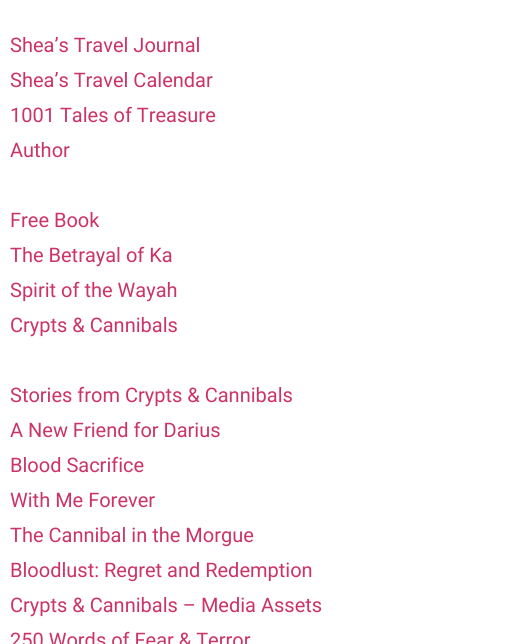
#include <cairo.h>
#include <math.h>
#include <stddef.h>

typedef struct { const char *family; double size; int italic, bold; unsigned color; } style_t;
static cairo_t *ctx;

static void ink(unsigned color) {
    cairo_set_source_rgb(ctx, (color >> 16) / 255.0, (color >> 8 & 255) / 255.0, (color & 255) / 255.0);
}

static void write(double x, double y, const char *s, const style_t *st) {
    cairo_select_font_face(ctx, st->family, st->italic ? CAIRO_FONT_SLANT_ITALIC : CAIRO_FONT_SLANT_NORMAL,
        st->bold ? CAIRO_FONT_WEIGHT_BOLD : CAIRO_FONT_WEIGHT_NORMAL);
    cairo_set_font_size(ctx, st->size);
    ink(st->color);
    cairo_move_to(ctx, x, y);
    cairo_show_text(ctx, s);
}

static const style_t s1 = {"Roboto", 20, 0, 0, 0xcc3366};

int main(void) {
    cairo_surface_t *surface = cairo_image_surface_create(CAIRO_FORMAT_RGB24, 512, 644);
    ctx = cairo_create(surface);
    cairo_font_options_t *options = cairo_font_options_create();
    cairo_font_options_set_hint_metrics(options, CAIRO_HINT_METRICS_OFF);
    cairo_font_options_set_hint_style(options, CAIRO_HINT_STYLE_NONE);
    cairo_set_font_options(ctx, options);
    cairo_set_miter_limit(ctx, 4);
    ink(0xffffff);
    cairo_paint(ctx);
    write(10, 52, "Shea’s Travel Journal", &s1);
    write(10, 87, "Shea’s Travel Calendar", &s1);
    write(10, 122, "1001 Tales of Treasure", &s1);
    write(10, 157, "Author", &s1);
    write(10, 227, "Free Book", &s1);
    write(10, 262, "The Betrayal of Ka", &s1);
    write(10, 297, "Spirit of the Wayah", &s1);
    write(10, 332, "Crypts & Cannibals", &s1);
    write(10, 402, "Stories from Crypts & Cannibals", &s1);
    write(10, 437, "A New Friend for Darius", &s1);
    write(10, 472, "Blood Sacrifice", &s1);
    write(10, 507, "With Me Forever", &s1);
    write(10, 542, "The Cannibal in the Morgue", &s1);
    write(10, 577, "Bloodlust: Regret and Redemption", &s1);
    write(10, 612, "Crypts & Cannibals – Media Assets", &s1);
    write(10, 647, "250 Words of Fear & Terror", &s1);
    cairo_surface_write_to_png(surface, "screenshot.png");
    cairo_font_options_destroy(options);
    cairo_destroy(ctx);
    cairo_surface_destroy(surface);
    return 0;
}
